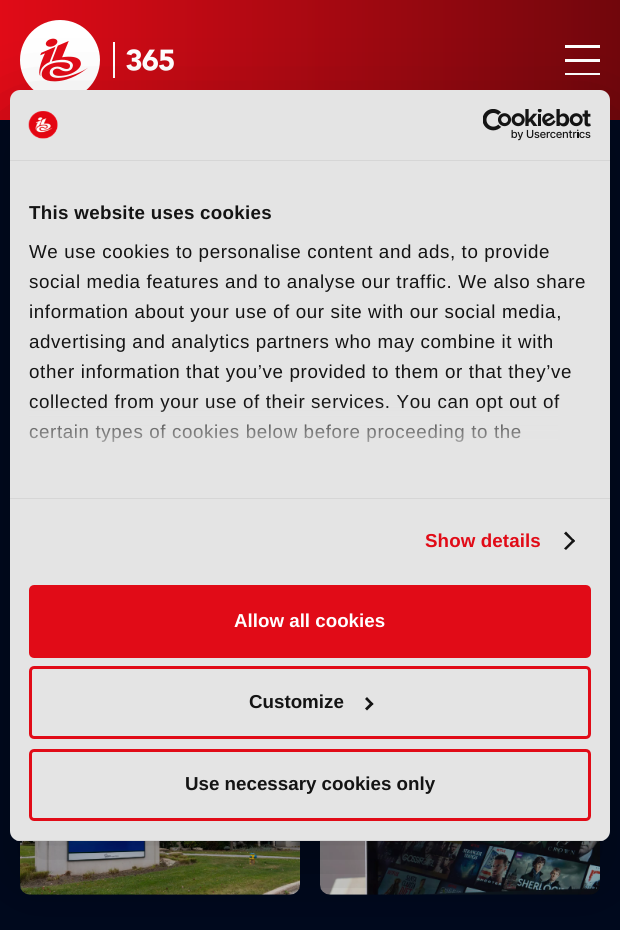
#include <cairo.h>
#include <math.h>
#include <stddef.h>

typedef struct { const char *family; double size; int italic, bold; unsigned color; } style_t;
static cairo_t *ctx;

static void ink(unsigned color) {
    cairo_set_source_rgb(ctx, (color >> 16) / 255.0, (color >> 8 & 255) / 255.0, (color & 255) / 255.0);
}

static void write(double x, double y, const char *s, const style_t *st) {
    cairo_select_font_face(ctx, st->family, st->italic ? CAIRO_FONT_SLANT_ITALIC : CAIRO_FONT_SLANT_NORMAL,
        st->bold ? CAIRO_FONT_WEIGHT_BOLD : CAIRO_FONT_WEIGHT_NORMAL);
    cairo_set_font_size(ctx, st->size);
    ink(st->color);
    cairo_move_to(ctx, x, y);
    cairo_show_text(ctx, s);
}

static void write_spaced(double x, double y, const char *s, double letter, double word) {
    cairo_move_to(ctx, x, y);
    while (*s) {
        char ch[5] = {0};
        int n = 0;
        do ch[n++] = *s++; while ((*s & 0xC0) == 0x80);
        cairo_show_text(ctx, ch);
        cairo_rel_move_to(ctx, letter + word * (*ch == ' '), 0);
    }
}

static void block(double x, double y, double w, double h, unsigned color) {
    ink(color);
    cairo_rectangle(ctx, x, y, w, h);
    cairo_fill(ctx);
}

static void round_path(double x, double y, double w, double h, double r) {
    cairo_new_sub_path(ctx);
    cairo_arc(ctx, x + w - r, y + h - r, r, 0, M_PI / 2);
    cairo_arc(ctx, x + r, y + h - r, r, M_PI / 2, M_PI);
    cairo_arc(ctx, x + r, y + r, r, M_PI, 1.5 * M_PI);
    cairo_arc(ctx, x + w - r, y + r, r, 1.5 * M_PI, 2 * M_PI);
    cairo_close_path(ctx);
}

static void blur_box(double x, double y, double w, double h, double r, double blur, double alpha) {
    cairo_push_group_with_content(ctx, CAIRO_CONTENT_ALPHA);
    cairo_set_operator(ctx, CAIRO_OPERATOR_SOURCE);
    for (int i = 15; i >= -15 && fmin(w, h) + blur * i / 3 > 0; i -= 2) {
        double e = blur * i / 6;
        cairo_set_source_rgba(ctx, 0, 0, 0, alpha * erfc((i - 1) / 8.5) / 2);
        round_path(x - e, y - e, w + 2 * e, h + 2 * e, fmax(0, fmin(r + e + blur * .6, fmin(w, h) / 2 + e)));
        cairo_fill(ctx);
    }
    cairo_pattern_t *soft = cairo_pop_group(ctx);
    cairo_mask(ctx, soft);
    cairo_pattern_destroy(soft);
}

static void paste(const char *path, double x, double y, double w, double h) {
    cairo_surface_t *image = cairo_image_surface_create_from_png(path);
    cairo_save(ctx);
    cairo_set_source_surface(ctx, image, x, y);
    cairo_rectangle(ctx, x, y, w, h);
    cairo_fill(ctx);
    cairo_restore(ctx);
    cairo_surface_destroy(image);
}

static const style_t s1 = {"Liberation Sans", 18.75, 0, 1, 0xffffff};
static const style_t s2 = {"Liberation Sans", 18.75, 0, 1, 0x141414};

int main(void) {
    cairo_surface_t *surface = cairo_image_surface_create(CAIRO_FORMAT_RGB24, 620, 930);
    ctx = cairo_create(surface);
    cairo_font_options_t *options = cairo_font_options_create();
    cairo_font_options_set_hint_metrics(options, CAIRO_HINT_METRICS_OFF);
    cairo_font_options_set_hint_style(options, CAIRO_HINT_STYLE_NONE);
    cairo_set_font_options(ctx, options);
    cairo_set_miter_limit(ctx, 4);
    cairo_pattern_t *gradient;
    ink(0x00091e);
    cairo_paint(ctx);
    gradient = cairo_pattern_create_linear(620, 60, 0, 60);
    cairo_pattern_add_color_stop_rgba(gradient, 0, 0.443, 0.024, 0.047, 1);
    cairo_pattern_add_color_stop_rgba(gradient, 1, 0.882, 0.043, 0.09, 1);
    cairo_set_source(ctx, gradient);
    cairo_pattern_destroy(gradient);
    cairo_rectangle(ctx, 0, 0, 620, 120);
    cairo_fill(ctx);
    paste("pic1.png", 20, 20, 154, 70);
    block(565, 59, 35, 3, 0xffffff);
    block(565, 45, 35, 3, 0xffffff);
    block(565, 73, 35, 2, 0xffffff);
    paste("pic2.png", 20, 841, 280, 54);
    paste("pic3.png", 320, 841, 280, 54);
    ink(0x000000);
    blur_box(10, 130, 600, 751, 10, 42.5, 0.3);
    ink(0xe4e4e4);
    round_path(10, 90, 600, 751, 10);
    cairo_fill(ctx);
    block(10, 160, 600, 1, 0xd6d6d6);
    paste("pic4.png", 28, 111, 30, 28);
    paste("pic5.png", 483, 109, 108, 32);
    block(10, 498, 600, 1, 0xd6d6d6);
    cairo_select_font_face(ctx, "Liberation Sans", CAIRO_FONT_SLANT_NORMAL, CAIRO_FONT_WEIGHT_BOLD);
    cairo_set_font_size(ctx, 18.75);
    ink(0x141414);
    write_spaced(29, 219, "This website uses cookies", 0.3, 0);
    cairo_select_font_face(ctx, "Liberation Sans", CAIRO_FONT_SLANT_NORMAL, CAIRO_FONT_WEIGHT_NORMAL);
    write_spaced(29, 258, "We use cookies to personalise content and ads, to provide", 0.62, 0);
    write_spaced(29, 288, "social media features and to analyse our traffic. We also share", 0.62, 0);
    write_spaced(29, 318, "information about your use of our site with our social media,", 0.62, 0);
    write_spaced(29, 348, "advertising and analytics partners who may combine it with", 0.62, 0);
    write_spaced(29, 378, "other information that you’ve provided to them or that they’ve", 0.62, 0);
    write_spaced(29, 408, "collected from your use of their services. You can opt out of", 0.62, 0);
    write_spaced(29, 438, "certain types of cookies below before proceeding to the", 0.62, 0);
    gradient = cairo_pattern_create_linear(302, 497, 302, 403);
    cairo_pattern_add_color_stop_rgba(gradient, 0, 0.894, 0.894, 0.894, 1);
    cairo_pattern_add_color_stop_rgba(gradient, 0.5, 0.894, 0.894, 0.894, 0.8);
    cairo_pattern_add_color_stop_rgba(gradient, 1, 0.894, 0.894, 0.894, 0);
    cairo_set_source(ctx, gradient);
    cairo_pattern_destroy(gradient);
    cairo_rectangle(ctx, 29, 404, 529, 38);
    cairo_fill(ctx);
    cairo_select_font_face(ctx, "Liberation Sans", CAIRO_FONT_SLANT_NORMAL, CAIRO_FONT_WEIGHT_BOLD);
    ink(0xe10b17);
    write_spaced(425, 547, "Show details", 0.1, 0);
    ink(0x141414);
    cairo_new_path(ctx);
    cairo_move_to(ctx, 566, 531.5);
    cairo_line_to(ctx, 575, 541);
    cairo_line_to(ctx, 573.5, 542.5);
    cairo_line_to(ctx, 564, 533.5);
    cairo_close_path(ctx);
    cairo_fill(ctx);
    cairo_new_path(ctx);
    cairo_move_to(ctx, 573.5, 539);
    cairo_line_to(ctx, 575, 541);
    cairo_line_to(ctx, 566, 550);
    cairo_line_to(ctx, 564, 548.5);
    cairo_close_path(ctx);
    cairo_fill(ctx);
    cairo_save(ctx);
    round_path(10, 90, 600, 751, 10);
    cairo_clip(ctx);
    block(10, 840, 600, 1, 0xd6d6d6);
    cairo_restore(ctx);
    ink(0xe10b17);
    round_path(30.5, 586.5, 559, 70, 3.5);
    cairo_fill_preserve(ctx);
    cairo_set_line_width(ctx, 3);
    cairo_stroke(ctx);
    write(234, 627, "Allow all cookies", &s1);
    round_path(30.5, 667.5, 559, 70, 3.5);
    ink(0xe10b17);
    cairo_stroke(ctx);
    write(249, 708, "Customize", &s2);
    cairo_new_path(ctx);
    cairo_move_to(ctx, 367, 697);
    cairo_line_to(ctx, 373.5, 704);
    cairo_line_to(ctx, 371.5, 705.5);
    cairo_line_to(ctx, 365, 699);
    cairo_close_path(ctx);
    cairo_fill(ctx);
    cairo_new_path(ctx);
    cairo_move_to(ctx, 371.5, 702);
    cairo_line_to(ctx, 373.5, 704);
    cairo_line_to(ctx, 367, 710.5);
    cairo_line_to(ctx, 365, 708.5);
    cairo_close_path(ctx);
    cairo_fill(ctx);
    round_path(30.5, 750.5, 559, 69, 3.5);
    ink(0xe10b17);
    cairo_stroke(ctx);
    write(185, 790, "Use necessary cookies only", &s2);
    cairo_surface_write_to_png(surface, "screenshot.png");
    cairo_font_options_destroy(options);
    cairo_destroy(ctx);
    cairo_surface_destroy(surface);
    return 0;
}
